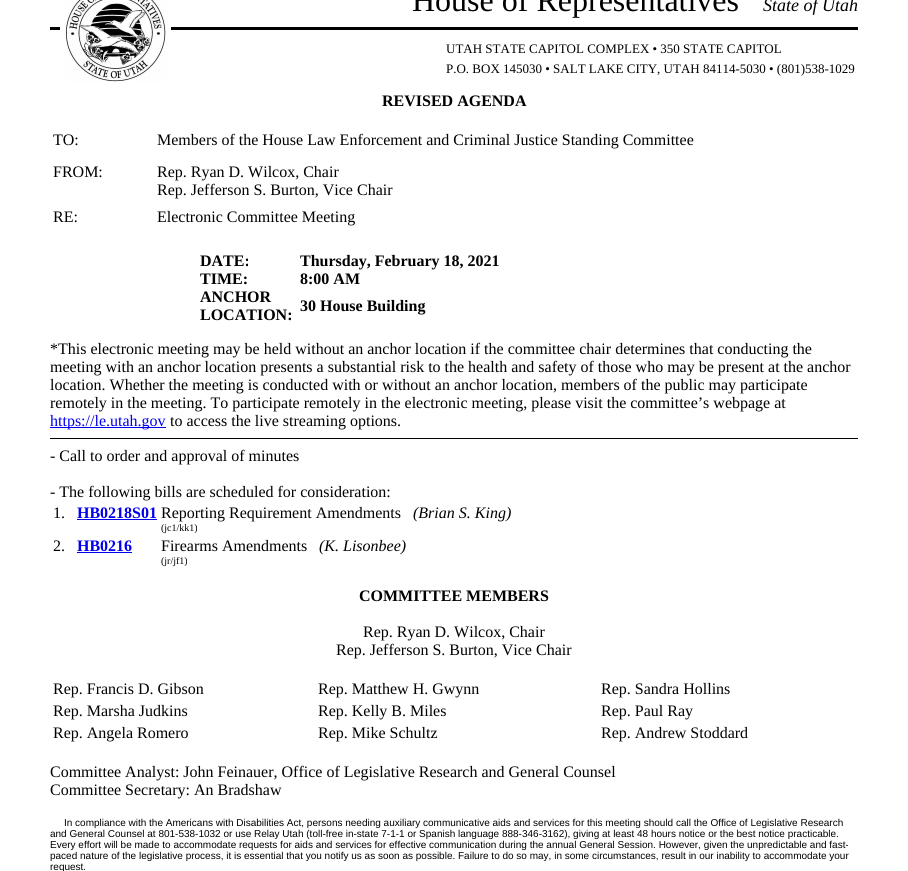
#include <cairo.h>
#include <math.h>
#include <stddef.h>

typedef struct { const char *family; double size; int italic, bold; unsigned color; } style_t;
static cairo_t *ctx;

static void ink(unsigned color) {
    cairo_set_source_rgb(ctx, (color >> 16) / 255.0, (color >> 8 & 255) / 255.0, (color & 255) / 255.0);
}

static void write(double x, double y, const char *s, const style_t *st) {
    cairo_select_font_face(ctx, st->family, st->italic ? CAIRO_FONT_SLANT_ITALIC : CAIRO_FONT_SLANT_NORMAL,
        st->bold ? CAIRO_FONT_WEIGHT_BOLD : CAIRO_FONT_WEIGHT_NORMAL);
    cairo_set_font_size(ctx, st->size);
    ink(st->color);
    cairo_move_to(ctx, x, y);
    cairo_show_text(ctx, s);
}

static void block(double x, double y, double w, double h, unsigned color) {
    ink(color);
    cairo_rectangle(ctx, x, y, w, h);
    cairo_fill(ctx);
}

static void paste(const char *path, double x, double y, double w, double h) {
    cairo_surface_t *image = cairo_image_surface_create_from_png(path);
    cairo_save(ctx);
    cairo_set_source_surface(ctx, image, x, y);
    cairo_rectangle(ctx, x, y, w, h);
    cairo_fill(ctx);
    cairo_restore(ctx);
    cairo_surface_destroy(image);
}

static const style_t s1 = {"Liberation Serif", 32, 0, 0, 0x000000};
static const style_t s2 = {"Liberation Serif", 18, 1, 0, 0x000000};
static const style_t s3 = {"Liberation Serif", 13, 0, 0, 0x000000};
static const style_t s4 = {"Liberation Serif", 16, 0, 1, 0x000000};
static const style_t s5 = {"Liberation Serif", 16, 0, 0, 0x000000};
static const style_t s6 = {"Liberation Serif", 16, 0, 0, 0x0000ee};
static const style_t s7 = {"Liberation Serif", 16, 0, 1, 0x0000ee};
static const style_t s8 = {"Liberation Serif", 16, 1, 0, 0x000000};
static const style_t s9 = {"Liberation Serif", 10, 0, 0, 0x000000};
static const style_t s10 = {"Liberation Sans", 10, 0, 0, 0x000000};

int main(void) {
    cairo_surface_t *surface = cairo_image_surface_create(CAIRO_FORMAT_RGB24, 908, 871);
    ctx = cairo_create(surface);
    cairo_font_options_t *options = cairo_font_options_create();
    cairo_font_options_set_hint_metrics(options, CAIRO_HINT_METRICS_OFF);
    cairo_font_options_set_hint_style(options, CAIRO_HINT_STYLE_NONE);
    cairo_set_font_options(ctx, options);
    cairo_set_miter_limit(ctx, 4);
    ink(0xffffff);
    cairo_paint(ctx);
    block(50, 27, 808, 3, 0x000000);
    paste("pic1.png", 60, 0, 111, 82);
    write(412, 11, "House of Representatives", &s1);
    write(763, 11, "State of Utah", &s2);
    write(446, 53, "UTAH STATE CAPITOL COMPLEX • 350 STATE CAPITOL", &s3);
    write(446, 73, "P.O. BOX 145030 • SALT LAKE CITY, UTAH 84114-5030 • (801)538-1029", &s3);
    write(382, 106, "REVISED AGENDA", &s4);
    write(53, 145, "TO:", &s5);
    write(157, 145, "Members of the House Law Enforcement and Criminal Justice Standing Committee", &s5);
    write(53, 177, "FROM:", &s5);
    write(157, 177, "Rep. Ryan D. Wilcox, Chair", &s5);
    write(157, 195, "Rep. Jefferson S. Burton, Vice Chair", &s5);
    write(53, 222, "RE:", &s5);
    write(157, 222, "Electronic Committee Meeting", &s5);
    write(200, 266, "DATE:", &s4);
    write(300, 266, "Thursday, February 18, 2021", &s4);
    write(200, 284, "TIME:", &s4);
    write(300, 284, "8:00 AM", &s4);
    write(200, 302, "ANCHOR", &s4);
    write(200, 320, "LOCATION:", &s4);
    write(300, 311, "30 House Building", &s4);
    write(50, 354, "*This electronic meeting may be held without an anchor location if the committee chair determines that conducting the", &s5);
    write(50, 372, "meeting with an anchor location presents a substantial risk to the health and safety of those who may be present at the anchor", &s5);
    write(50, 390, "location. Whether the meeting is conducted with or without an anchor location, members of the public may participate", &s5);
    write(50, 408, "remotely in the meeting. To participate remotely in the electronic meeting, please visit the committee’s webpage at", &s5);
    block(50, 427, 116, 1, 0x0000ee);
    write(50, 426, "https://le.utah.gov", &s6);
    write(170, 426, "to access the live streaming options.", &s5);
    block(50, 438, 808, 1, 0x000000);
    write(50, 461, "- Call to order and approval of minutes", &s5);
    write(50, 497, "- The following bills are scheduled for consideration:", &s5);
    write(53, 518, "1.", &s5);
    write(77, 518, "HB0218S01", &s7);
    block(77, 519, 80, 1, 0x0000ee);
    write(161, 518, "Reporting Requirement Amendments", &s5);
    write(413, 518, "(Brian S. King)", &s8);
    write(161, 531, "(jc1/kk1)", &s9);
    write(53, 551, "2.", &s5);
    write(77, 551, "HB0216", &s7);
    block(77, 552, 55, 1, 0x0000ee);
    write(161, 551, "Firearms Amendments", &s5);
    write(319, 551, "(K. Lisonbee)", &s8);
    write(161, 564, "(jr/jf1)", &s9);
    write(359, 601, "COMMITTEE MEMBERS", &s4);
    write(363, 637, "Rep. Ryan D. Wilcox, Chair", &s5);
    write(336, 655, "Rep. Jefferson S. Burton, Vice Chair", &s5);
    write(53, 694, "Rep. Francis D. Gibson", &s5);
    write(318, 694, "Rep. Matthew H. Gwynn", &s5);
    write(601, 694, "Rep. Sandra Hollins", &s5);
    write(53, 716, "Rep. Marsha Judkins", &s5);
    write(318, 716, "Rep. Kelly B. Miles", &s5);
    write(601, 716, "Rep. Paul Ray", &s5);
    write(53, 738, "Rep. Angela Romero", &s5);
    write(318, 738, "Rep. Mike Schultz", &s5);
    write(601, 738, "Rep. Andrew Stoddard", &s5);
    write(50, 777, "Committee Analyst: John Feinauer, Office of Legislative Research and General Counsel", &s5);
    write(50, 795, "Committee Secretary: An Bradshaw", &s5);
    write(64, 826, "In compliance with the Americans with Disabilities Act, persons needing auxiliary communicative aids and services for this meeting should call the Office of Legislative Research", &s10);
    write(50, 837, "and General Counsel at 801-538-1032 or use Relay Utah (toll-free in-state 7-1-1 or Spanish language 888-346-3162), giving at least 48 hours notice or the best notice practicable.", &s10);
    write(50, 848, "Every effort will be made to accommodate requests for aids and services for effective communication during the annual General Session. However, given the unpredictable and fast-", &s10);
    write(50, 859, "paced nature of the legislative process, it is essential that you notify us as soon as possible. Failure to do so may, in some circumstances, result in our inability to accommodate your", &s10);
    write(50, 870, "request.", &s10);
    cairo_surface_write_to_png(surface, "screenshot.png");
    cairo_font_options_destroy(options);
    cairo_destroy(ctx);
    cairo_surface_destroy(surface);
    return 0;
}
